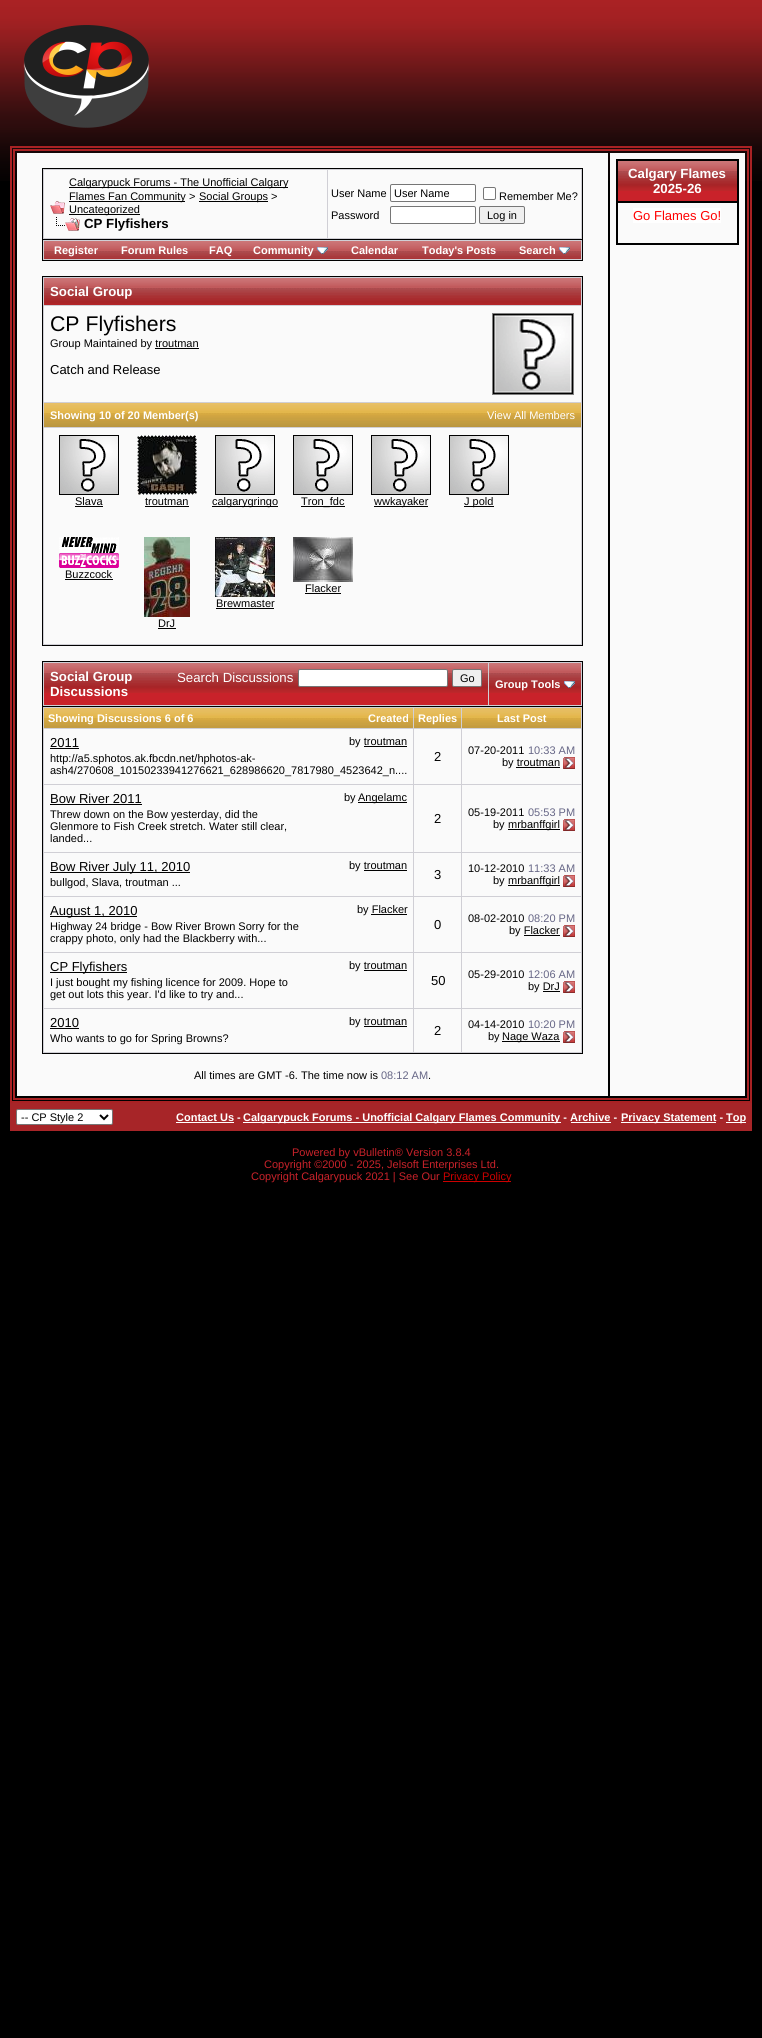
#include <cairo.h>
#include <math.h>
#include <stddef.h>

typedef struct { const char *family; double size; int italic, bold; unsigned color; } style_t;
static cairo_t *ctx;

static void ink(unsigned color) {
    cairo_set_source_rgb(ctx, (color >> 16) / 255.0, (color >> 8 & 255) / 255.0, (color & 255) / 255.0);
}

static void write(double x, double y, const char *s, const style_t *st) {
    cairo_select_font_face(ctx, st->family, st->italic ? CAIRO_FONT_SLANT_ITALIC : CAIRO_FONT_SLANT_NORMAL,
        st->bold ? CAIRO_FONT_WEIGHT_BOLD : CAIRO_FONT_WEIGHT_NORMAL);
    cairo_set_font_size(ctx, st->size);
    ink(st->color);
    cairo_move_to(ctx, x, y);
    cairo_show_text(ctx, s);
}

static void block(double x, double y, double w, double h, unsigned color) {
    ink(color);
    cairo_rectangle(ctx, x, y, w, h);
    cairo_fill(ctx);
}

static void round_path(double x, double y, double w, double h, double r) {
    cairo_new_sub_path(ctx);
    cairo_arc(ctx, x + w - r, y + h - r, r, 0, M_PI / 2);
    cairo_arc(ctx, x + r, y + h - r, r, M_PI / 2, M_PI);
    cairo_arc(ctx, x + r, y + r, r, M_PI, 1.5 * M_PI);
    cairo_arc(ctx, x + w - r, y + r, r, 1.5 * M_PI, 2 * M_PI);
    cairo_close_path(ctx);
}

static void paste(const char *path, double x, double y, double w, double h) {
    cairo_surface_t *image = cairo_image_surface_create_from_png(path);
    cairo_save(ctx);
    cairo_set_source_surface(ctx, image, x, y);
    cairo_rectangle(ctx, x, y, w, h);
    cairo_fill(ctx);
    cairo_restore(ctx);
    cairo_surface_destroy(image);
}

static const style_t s1 = {"Liberation Sans", 11, 0, 0, 0x000000};
static const style_t s2 = {"Liberation Sans", 13.25, 0, 1, 0x000000};
static const style_t s3 = {"Liberation Sans", 11, 0, 1, 0xffffff};
static const style_t s4 = {"Liberation Sans", 13.25, 0, 1, 0xffffff};
static const style_t s5 = {"Liberation Sans", 21.25, 0, 0, 0x000000};
static const style_t s6 = {"Liberation Sans", 13, 0, 0, 0x000000};
static const style_t s7 = {"Liberation Sans", 11, 0, 0, 0xffffff};
static const style_t s8 = {"Liberation Sans", 13.25, 0, 0, 0xffffff};
static const style_t s9 = {"Liberation Sans", 11, 0, 0, 0x666686};
static const style_t s10 = {"Liberation Sans", 13, 0, 0, 0xff0000};
static const style_t s11 = {"Liberation Sans", 11, 0, 0, 0xc9222a};
static const style_t s12 = {"Liberation Sans", 11, 0, 0, 0xcc0000};

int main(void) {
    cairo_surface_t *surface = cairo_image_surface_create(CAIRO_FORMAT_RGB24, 762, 2038);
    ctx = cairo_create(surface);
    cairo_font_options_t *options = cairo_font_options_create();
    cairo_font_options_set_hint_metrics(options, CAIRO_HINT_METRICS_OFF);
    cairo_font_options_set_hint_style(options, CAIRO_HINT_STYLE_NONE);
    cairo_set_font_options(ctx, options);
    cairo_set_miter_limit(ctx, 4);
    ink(0x000000);
    cairo_paint(ctx);
    paste("pic1.png", 0, 0, 762, 181);
    paste("pic2.png", 23, 25, 127, 103);
    cairo_rectangle(ctx, 11, 147, 740, 955);
    ink(0xa92224);
    cairo_stroke(ctx);
    cairo_rectangle(ctx, 14, 150, 734, 949);
    cairo_stroke(ctx);
    block(17, 153, 591, 943, 0xfafafa);
    ink(0xd0cfd5);
    cairo_rectangle(ctx, 42.5, 168.5, 540, 71);
    cairo_fill_preserve(ctx);
    ink(0x000000);
    cairo_set_line_width(ctx, 1);
    cairo_stroke(ctx);
    block(44, 170, 283, 68, 0xfafafa);
    paste("pic3.png", 50, 201, 15, 13);
    block(69, 187, 219, 1, 0x000000);
    write(69, 186, "Calgarypuck Forums - The Unofficial Calgary", &s1);
    block(69, 201, 116, 1, 0x000000);
    write(69, 200, "Flames Fan Community", &s1);
    write(189, 200, ">", &s1);
    block(199, 201, 69, 1, 0x000000);
    write(199, 200, "Social Groups", &s1);
    write(271, 200, ">", &s1);
    block(69, 214, 71, 1, 0x000000);
    write(69, 213, "Uncategorized", &s1);
    paste("pic4.png", 56, 217, 24, 14);
    write(84, 228, "CP Flyfishers", &s2);
    block(328, 170, 253, 68, 0xfafafa);
    write(331, 197, "User Name", &s1);
    ink(0xffffff);
    round_path(390.5, 184.5, 85, 17, 1.5);
    cairo_fill_preserve(ctx);
    ink(0x767676);
    cairo_stroke(ctx);
    write(394, 197, "User Name", &s1);
    ink(0xffffff);
    round_path(483.5, 187.5, 12, 12, 1.5);
    cairo_fill_preserve(ctx);
    ink(0x767676);
    cairo_stroke(ctx);
    write(499, 200, "Remember Me?", &s1);
    write(331, 219, "Password", &s1);
    ink(0xffffff);
    round_path(390.5, 206.5, 85, 17, 1.5);
    cairo_fill_preserve(ctx);
    ink(0x767676);
    cairo_stroke(ctx);
    ink(0xefefef);
    round_path(479.5, 206.5, 45, 17, 1.5);
    cairo_fill_preserve(ctx);
    ink(0x767676);
    cairo_stroke(ctx);
    write(487, 219, "Log in", &s1);
    block(43, 240, 539, 20, 0xd0cfd5);
    block(582, 240, 1, 21, 0x000000);
    block(42, 260, 541, 1, 0x000000);
    block(42, 240, 1, 21, 0x000000);
    paste("pic5.png", 44, 241, 65, 18);
    write(54, 254, "Register", &s3);
    paste("pic6.png", 109, 241, 91, 18);
    write(121, 254, "Forum Rules", &s3);
    paste("pic7.png", 200, 241, 41, 18);
    write(209, 254, "FAQ", &s3);
    paste("pic8.png", 241, 241, 100, 18);
    write(253, 254, "Community", &s3);
    paste("pic9.png", 317, 247, 11, 7);
    paste("pic10.png", 341, 241, 68, 18);
    write(351, 254, "Calendar", &s3);
    paste("pic11.png", 409, 241, 99, 18);
    write(422, 254, "Today's Posts", &s3);
    paste("pic12.png", 508, 241, 73, 18);
    write(519, 254, "Search", &s3);
    paste("pic13.png", 559, 247, 11, 7);
    ink(0xd0cfd5);
    cairo_rectangle(ctx, 42.5, 276.5, 540, 369);
    cairo_fill_preserve(ctx);
    ink(0x000000);
    cairo_stroke(ctx);
    paste("pic14.png", 44, 278, 537, 27);
    write(50, 296, "Social Group", &s4);
    block(44, 306, 537, 96, 0xfafafa);
    write(50, 331, "CP Flyfishers", &s5);
    cairo_rectangle(ctx, 492.5, 313.5, 81, 81);
    ink(0x808080);
    cairo_stroke(ctx);
    paste("pic15.png", 493, 314, 80, 80);
    write(50, 347, "Group Maintained by troutman", &s1);
    block(155, 348, 44, 1, 0x000000);
    write(50, 374, "Catch and Release", &s6);
    paste("pic16.png", 44, 403, 537, 24);
    write(50, 419, "Showing 10 of 20 Member(s)", &s3);
    write(487, 419, "View All Members", &s7);
    block(44, 428, 537, 216, 0xfafafa);
    paste("pic17.png", 59, 435, 60, 60);
    write(75, 505, "Slava", &s1);
    block(75, 506, 28, 1, 0x000000);
    paste("pic18.png", 137, 435, 60, 60);
    write(145, 505, "troutman", &s1);
    block(145, 506, 44, 1, 0x000000);
    paste("pic17.png", 215, 435, 60, 60);
    block(212, 506, 66, 1, 0x000000);
    write(212, 505, "calgarygringo", &s1);
    paste("pic17.png", 293, 435, 60, 60);
    block(301, 506, 44, 1, 0x000000);
    write(301, 505, "Tron_fdc", &s1);
    paste("pic17.png", 371, 435, 60, 60);
    block(374, 506, 54, 1, 0x000000);
    write(374, 505, "wwkayaker", &s1);
    paste("pic17.png", 449, 435, 60, 60);
    block(464, 506, 30, 1, 0x000000);
    write(464, 505, "J pold", &s1);
    paste("pic19.png", 59, 537, 60, 31);
    write(65, 578, "Buzzcock", &s1);
    block(65, 579, 48, 1, 0x000000);
    paste("pic20.png", 293, 537, 60, 45);
    write(305, 592, "Flacker", &s1);
    block(305, 593, 36, 1, 0x000000);
    paste("pic21.png", 215, 537, 60, 60);
    write(216, 607, "Brewmaster", &s1);
    block(216, 608, 58, 1, 0x000000);
    paste("pic22.png", 144, 537, 46, 80);
    write(158, 627, "DrJ", &s1);
    block(158, 628, 18, 1, 0x000000);
    block(43, 662, 539, 44, 0xd0cfd5);
    block(42, 661, 541, 1, 0x000000);
    block(582, 661, 1, 45, 0x000000);
    block(42, 661, 1, 45, 0x000000);
    block(44, 693, 444, 12, 0xc9222a);
    paste("pic23.png", 44, 663, 444, 30);
    write(50, 681, "Social Group", &s4);
    write(177, 682, "Search Discussions", &s8);
    round_path(298.5, 669.5, 149, 17, 1.5);
    cairo_fill_preserve(ctx);
    ink(0x767676);
    cairo_stroke(ctx);
    ink(0xefefef);
    round_path(452.5, 669.5, 29, 17, 1.5);
    cairo_fill_preserve(ctx);
    ink(0x767676);
    cairo_stroke(ctx);
    write(460, 682, "Go", &s1);
    write(50, 696, "Discussions", &s4);
    block(489, 693, 92, 12, 0xc9222a);
    paste("pic24.png", 489, 663, 92, 30);
    write(495, 688, "Group Tools", &s3);
    paste("pic25.png", 564, 681, 11, 7);
    ink(0xd0cfd5);
    cairo_rectangle(ctx, 42.5, 706.5, 540, 347);
    cairo_fill_preserve(ctx);
    ink(0x000000);
    cairo_stroke(ctx);
    paste("pic26.png", 44, 708, 369, 20);
    write(48, 722, "Showing Discussions 6 of 6", &s3);
    write(368, 722, "Created", &s3);
    paste("pic27.png", 414, 708, 47, 20);
    write(418, 722, "Replies", &s3);
    paste("pic28.png", 462, 708, 119, 20);
    write(497, 722, "Last Post", &s3);
    block(44, 729, 369, 55, 0xfafafa);
    write(50, 747, "2011", &s6);
    block(50, 748, 29, 1, 0x000000);
    write(349, 745, "by troutman", &s1);
    block(364, 746, 43, 1, 0x000000);
    write(50, 762, "http://a5.sphotos.ak.fbcdn.net/hphotos-ak-", &s1);
    write(50, 774, "ash4/270608_10150233941276621_628986620_7817980_4523642_n....", &s1);
    block(414, 729, 47, 55, 0xfafafa);
    write(434, 761, "2", &s6);
    block(462, 729, 119, 55, 0xfafafa);
    write(468, 754, "07-20-2011", &s1);
    write(528, 754, "10:33 AM", &s9);
    write(502, 766, "by troutman", &s1);
    block(516, 767, 44, 1, 0x000000);
    paste("pic29.png", 563, 757, 12, 12);
    block(44, 785, 369, 67, 0xfafafa);
    write(50, 803, "Bow River 2011", &s6);
    block(50, 804, 92, 1, 0x000000);
    write(344, 801, "by", &s1);
    block(358, 802, 49, 1, 0x000000);
    write(358, 801, "Angelamc", &s1);
    write(50, 818, "Threw down on the Bow yesterday, did the", &s1);
    write(50, 830, "Glenmore to Fish Creek stretch. Water still clear,", &s1);
    write(50, 842, "landed...", &s1);
    block(414, 785, 47, 67, 0xfafafa);
    write(434, 823, "2", &s6);
    block(462, 785, 119, 67, 0xfafafa);
    write(468, 816, "05-19-2011", &s1);
    write(528, 816, "05:53 PM", &s9);
    write(493, 828, "by", &s1);
    block(508, 829, 52, 1, 0x000000);
    write(508, 828, "mrbanffgirl", &s1);
    paste("pic29.png", 563, 819, 12, 12);
    block(44, 853, 369, 43, 0xfafafa);
    block(50, 872, 140, 1, 0x000000);
    write(50, 871, "Bow River July 11, 2010", &s6);
    write(349, 869, "by troutman", &s1);
    block(364, 870, 43, 1, 0x000000);
    write(50, 886, "bullgod, Slava, troutman ...", &s1);
    block(414, 853, 47, 43, 0xfafafa);
    write(434, 879, "3", &s6);
    block(462, 853, 119, 43, 0xfafafa);
    write(468, 872, "10-12-2010", &s1);
    write(528, 872, "11:33 AM", &s9);
    write(493, 884, "by", &s1);
    block(508, 885, 52, 1, 0x000000);
    write(508, 884, "mrbanffgirl", &s1);
    paste("pic29.png", 563, 875, 12, 12);
    block(44, 897, 369, 55, 0xfafafa);
    block(50, 916, 87, 1, 0x000000);
    write(50, 915, "August 1, 2010", &s6);
    write(357, 913, "by Flacker", &s1);
    block(371, 914, 36, 1, 0x000000);
    write(50, 930, "Highway 24 bridge - Bow River Brown Sorry for the", &s1);
    write(50, 942, "crappy photo, only had the Blackberry with...", &s1);
    block(414, 897, 47, 55, 0xfafafa);
    write(434, 929, "0", &s6);
    block(462, 897, 119, 55, 0xfafafa);
    write(468, 922, "08-02-2010", &s1);
    write(528, 922, "08:20 PM", &s9);
    write(509, 934, "by Flacker", &s1);
    block(524, 935, 36, 1, 0x000000);
    paste("pic29.png", 563, 925, 12, 12);
    block(44, 953, 369, 55, 0xfafafa);
    block(50, 972, 77, 1, 0x000000);
    write(50, 971, "CP Flyfishers", &s6);
    write(349, 969, "by troutman", &s1);
    block(364, 970, 43, 1, 0x000000);
    write(50, 986, "I just bought my fishing licence for 2009. Hope to", &s1);
    write(50, 998, "get out lots this year. I'd like to try and...", &s1);
    block(414, 953, 47, 55, 0xfafafa);
    write(431, 985, "50", &s6);
    block(462, 953, 119, 55, 0xfafafa);
    write(468, 978, "05-29-2010", &s1);
    write(528, 978, "12:06 AM", &s9);
    write(528, 990, "by DrJ", &s1);
    block(543, 991, 17, 1, 0x000000);
    paste("pic29.png", 563, 981, 12, 12);
    block(44, 1009, 369, 43, 0xfafafa);
    write(50, 1027, "2010", &s6);
    block(50, 1028, 29, 1, 0x000000);
    write(349, 1025, "by troutman", &s1);
    block(364, 1026, 43, 1, 0x000000);
    write(50, 1042, "Who wants to go for Spring Browns?", &s1);
    block(414, 1009, 47, 43, 0xfafafa);
    write(434, 1035, "2", &s6);
    block(462, 1009, 119, 43, 0xfafafa);
    write(468, 1028, "04-14-2010", &s1);
    write(528, 1028, "10:20 PM", &s9);
    write(488, 1040, "by", &s1);
    block(502, 1041, 58, 1, 0x000000);
    write(502, 1040, "Nage Waza", &s1);
    paste("pic29.png", 563, 1031, 12, 12);
    write(194, 1079, "All times are GMT -6. The time now is", &s1);
    write(381, 1079, "08:12 AM", &s9);
    write(428, 1079, ".", &s1);
    block(610, 153, 135, 943, 0xfafafa);
    cairo_rectangle(ctx, 616.5, 159.5, 122, 85);
    ink(0x000000);
    cairo_stroke(ctx);
    block(618, 191, 119, 10, 0xc9222a);
    paste("pic30.png", 618, 161, 119, 30);
    cairo_rectangle(ctx, 617.5, 160.5, 120, 41);
    ink(0x000000);
    cairo_stroke(ctx);
    write(628, 178, "Calgary Flames", &s4);
    write(653, 193, "2025-26", &s4);
    cairo_rectangle(ctx, 617.5, 202.5, 120, 41);
    ink(0x000000);
    cairo_stroke(ctx);
    block(633, 208, 88, 15, 0xffffff);
    write(633, 220, "Go Flames Go!", &s10);
    block(10, 1103, 742, 28, 0xa72528);
    ink(0xffffff);
    round_path(16.5, 1109.5, 96, 15, 1.5);
    cairo_fill_preserve(ctx);
    ink(0x767676);
    cairo_stroke(ctx);
    cairo_new_path(ctx);
    cairo_move_to(ctx, 100, 1115);
    cairo_line_to(ctx, 104, 1119);
    cairo_line_to(ctx, 108, 1115);
    ink(0x000000);
    cairo_set_line_width(ctx, 2);
    cairo_stroke(ctx);
    write(21, 1121, "-- CP Style 2", &s1);
    write(176, 1121, "Contact Us -", &s3);
    block(176, 1122, 58, 1, 0xffffff);
    block(243, 1122, 318, 1, 0xffffff);
    write(243, 1121, "Calgarypuck Forums - Unofficial Calgary Flames Community - Archive -", &s3);
    block(571, 1122, 40, 1, 0xffffff);
    block(621, 1122, 95, 1, 0xffffff);
    write(621, 1121, "Privacy Statement -", &s3);
    block(726, 1122, 20, 1, 0xffffff);
    write(726, 1121, "Top", &s3);
    write(292, 1156, "Powered by vBulletin® Version 3.8.4", &s11);
    write(264, 1168, "Copyright ©2000 - 2025, Jelsoft Enterprises Ltd.", &s11);
    write(251, 1180, "Copyright Calgarypuck 2021 | See Our", &s11);
    block(443, 1181, 68, 1, 0xcc0000);
    write(443, 1180, "Privacy Policy", &s12);
    cairo_surface_write_to_png(surface, "screenshot.png");
    cairo_font_options_destroy(options);
    cairo_destroy(ctx);
    cairo_surface_destroy(surface);
    return 0;
}
